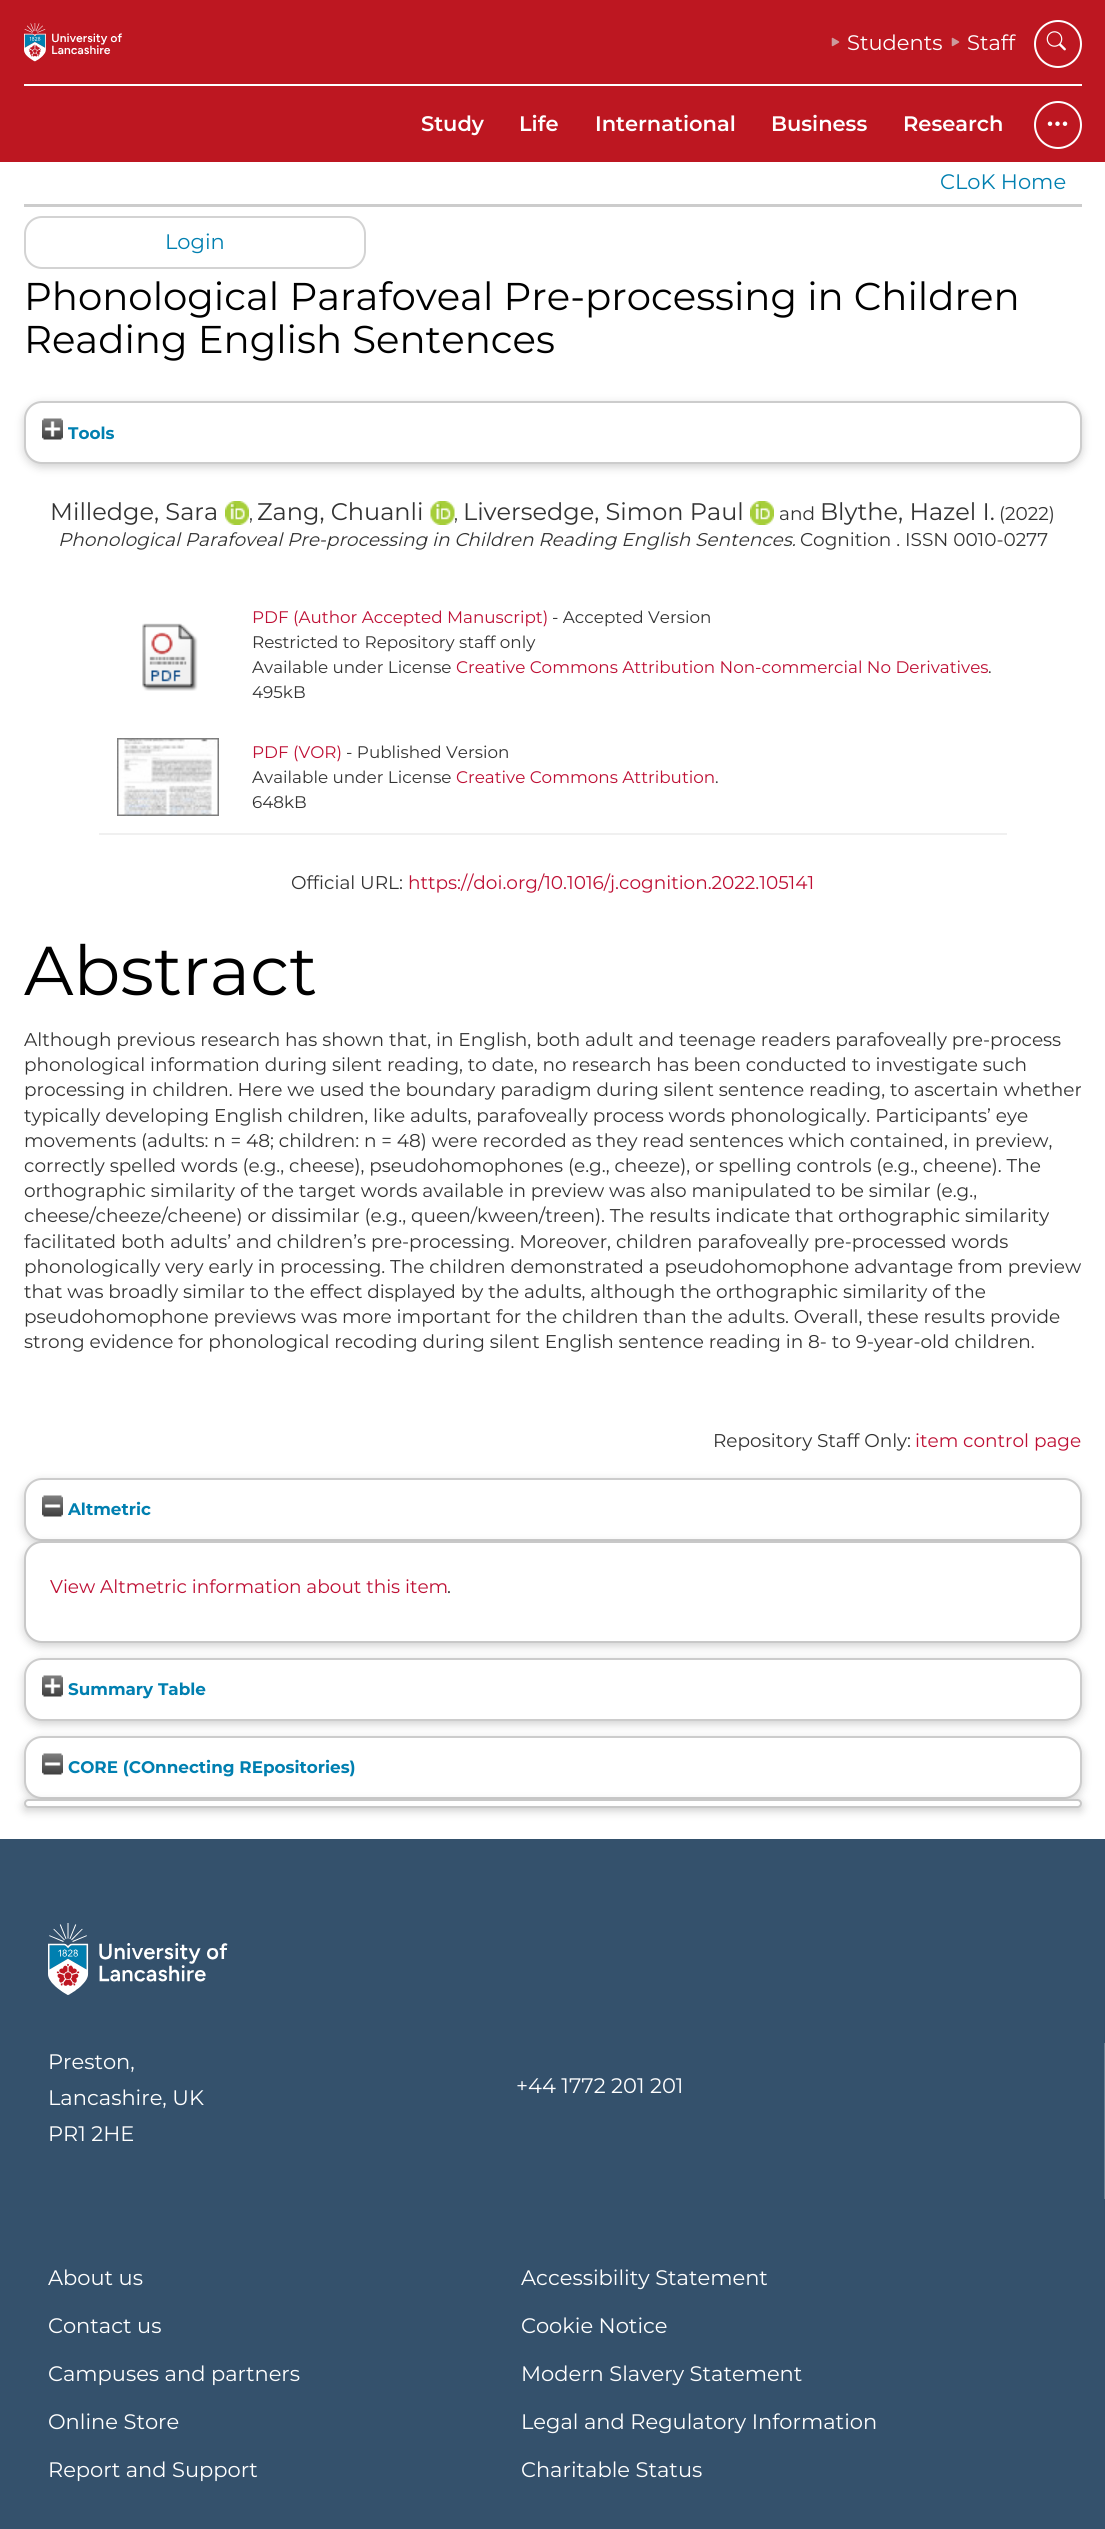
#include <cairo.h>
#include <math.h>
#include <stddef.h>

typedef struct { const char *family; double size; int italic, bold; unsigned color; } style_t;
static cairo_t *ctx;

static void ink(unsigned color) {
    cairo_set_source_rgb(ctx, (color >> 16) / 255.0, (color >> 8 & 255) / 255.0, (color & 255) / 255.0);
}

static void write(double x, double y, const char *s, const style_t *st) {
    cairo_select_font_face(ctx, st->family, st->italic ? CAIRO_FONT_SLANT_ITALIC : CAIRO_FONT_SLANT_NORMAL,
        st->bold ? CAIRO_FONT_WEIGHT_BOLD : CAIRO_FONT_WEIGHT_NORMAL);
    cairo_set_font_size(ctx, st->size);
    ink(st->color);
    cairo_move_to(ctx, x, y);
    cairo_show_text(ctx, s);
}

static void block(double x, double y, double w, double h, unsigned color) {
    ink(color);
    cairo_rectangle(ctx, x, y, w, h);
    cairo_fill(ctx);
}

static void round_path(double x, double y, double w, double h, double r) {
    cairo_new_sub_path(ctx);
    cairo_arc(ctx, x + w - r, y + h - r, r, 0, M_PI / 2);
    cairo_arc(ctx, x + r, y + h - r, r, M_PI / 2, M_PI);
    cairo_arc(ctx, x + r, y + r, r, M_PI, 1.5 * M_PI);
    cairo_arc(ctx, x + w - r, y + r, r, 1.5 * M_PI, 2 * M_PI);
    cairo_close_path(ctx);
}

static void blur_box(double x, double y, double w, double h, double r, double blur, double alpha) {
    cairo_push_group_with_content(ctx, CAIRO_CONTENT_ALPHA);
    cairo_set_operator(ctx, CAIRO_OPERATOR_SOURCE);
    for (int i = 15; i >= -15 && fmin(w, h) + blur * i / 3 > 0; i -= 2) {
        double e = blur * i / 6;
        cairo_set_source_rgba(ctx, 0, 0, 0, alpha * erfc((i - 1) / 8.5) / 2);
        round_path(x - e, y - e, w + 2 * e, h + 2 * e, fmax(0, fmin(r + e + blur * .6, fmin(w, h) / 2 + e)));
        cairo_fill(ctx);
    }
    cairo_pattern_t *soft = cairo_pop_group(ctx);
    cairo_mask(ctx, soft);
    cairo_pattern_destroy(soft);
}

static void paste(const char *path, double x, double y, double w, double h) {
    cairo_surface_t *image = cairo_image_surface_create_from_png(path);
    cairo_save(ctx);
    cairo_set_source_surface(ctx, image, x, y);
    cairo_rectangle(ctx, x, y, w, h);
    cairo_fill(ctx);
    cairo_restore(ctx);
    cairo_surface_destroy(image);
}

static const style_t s1 = {"Montserrat", 21, 0, 0, 0xffffff};
static const style_t s2 = {"Montserrat SemiBold", 21, 0, 0, 0xffffff};
static const style_t s3 = {"Montserrat", 21, 0, 0, 0x007fb0};
static const style_t s4 = {"Montserrat", 38.7, 0, 0, 0x000000};
static const style_t s5 = {"Montserrat", 16.8, 0, 1, 0x007fb0};
static const style_t s6 = {"Montserrat", 24, 0, 0, 0x333333};
static const style_t s7 = {"Montserrat", 18.48, 0, 0, 0x333333};
static const style_t s8 = {"Montserrat", 18.48, 1, 0, 0x333333};
static const style_t s9 = {"Montserrat", 16.8, 0, 0, 0xbe0f34};
static const style_t s10 = {"Montserrat", 16.8, 0, 0, 0x333333};
static const style_t s11 = {"Montserrat", 18.48, 0, 0, 0xbe0f34};
static const style_t s12 = {"Montserrat", 69, 0, 0, 0x000000};

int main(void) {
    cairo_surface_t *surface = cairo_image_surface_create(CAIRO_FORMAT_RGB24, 1105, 2529);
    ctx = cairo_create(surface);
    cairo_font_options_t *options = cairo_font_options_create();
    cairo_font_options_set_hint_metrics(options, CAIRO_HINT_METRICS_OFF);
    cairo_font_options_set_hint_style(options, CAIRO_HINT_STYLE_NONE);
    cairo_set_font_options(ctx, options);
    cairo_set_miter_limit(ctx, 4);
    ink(0xffffff);
    cairo_paint(ctx);
    block(0, 0, 1105, 162, 0xbd1721);
    paste("pic1.png", 24, 23, 98, 39);
    paste("pic2.png", 831, 37, 9, 10);
    write(847, 50, "Students", &s1);
    paste("pic2.png", 951, 37, 9, 10);
    write(967, 50, "Staff", &s1);
    block(24, 84, 1058, 2, 0xffffff);
    write(421, 131, "Study", &s2);
    write(519, 131, "Life", &s2);
    write(595, 131, "International", &s2);
    write(771, 131, "Business", &s2);
    write(903, 131, "Research", &s2);
    cairo_new_path(ctx);
    cairo_arc(ctx, 1058, 44, 23, 0, 2 * M_PI);
    cairo_stroke(ctx);
    paste("pic3.png", 1046, 31, 20, 20);
    cairo_arc(ctx, 1058, 125, 23, 0, 2 * M_PI);
    cairo_stroke(ctx);
    paste("pic4.png", 1047, 121, 21, 5);
    write(940, 189, "CLoK Home", &s3);
    block(24, 204, 1058, 3, 0xcccccc);
    round_path(25, 217, 340, 51, 17);
    ink(0xd3d3d3);
    cairo_stroke(ctx);
    write(165, 249, "Login", &s3);
    write(24, 310, "Phonological Parafoveal Pre-processing in Children", &s4);
    write(24, 353, "Reading English Sentences", &s4);
    ink(0x646464);
    blur_box(24, 404, 1058, 63, 18, 4.5, 0.3);
    ink(0xffffff);
    round_path(25, 402, 1056, 61, 17);
    cairo_fill_preserve(ctx);
    ink(0xcccccc);
    cairo_stroke(ctx);
    paste("pic5.png", 42, 418, 21, 22);
    write(68, 439, "Tools", &s5);
    write(50, 520, "Milledge, Sara", &s6);
    paste("pic6.png", 225, 501, 24, 24);
    write(249, 520, ",", &s7);
    write(257, 520, "Zang, Chuanli", &s6);
    paste("pic7.png", 430, 501, 25, 24);
    write(454, 520, ",", &s7);
    write(463, 520, "Liversedge, Simon Paul", &s6);
    paste("pic8.png", 750, 501, 24, 24);
    write(779, 520, "and", &s7);
    write(820, 520, "Blythe, Hazel I.", &s6);
    write(999, 520, "(2022)", &s7);
    write(58, 546, "Phonological Parafoveal Pre-processing in Children Reading English Sentences.", &s8);
    write(800, 546, "Cognition . ISSN 0010-0277", &s7);
    block(99, 833, 908, 2, 0xf0f0f0);
    paste("pic9.png", 142, 623, 56, 68);
    write(252, 623, "PDF (Author Accepted Manuscript)", &s9);
    write(552, 623, "- Accepted Version", &s10);
    write(252, 648, "Restricted to Repository staff only", &s10);
    write(252, 673, "Available under License", &s10);
    write(456, 673, "Creative Commons Attribution Non-commercial No Derivatives", &s9);
    write(988, 673, ".", &s10);
    write(252, 698, "495kB", &s10);
    paste("pic10.png", 117, 738, 102, 78);
    write(252, 758, "PDF (VOR)", &s9);
    write(346, 758, "- Published Version", &s10);
    write(252, 783, "Available under License", &s10);
    write(456, 783, "Creative Commons Attribution", &s9);
    write(715, 783, ".", &s10);
    write(252, 808, "648kB", &s10);
    write(291, 889, "Official URL:", &s7);
    write(408, 889, "https://doi.org/10.1016/j.cognition.2022.105141", &s11);
    write(24, 995, "Abstract", &s12);
    write(24, 1046, "Although previous research has shown that, in English, both adult and teenage readers parafoveally pre-process", &s7);
    write(24, 1071, "phonological information during silent reading, to date, no research has been conducted to investigate such", &s7);
    write(24, 1096, "processing in children. Here we used the boundary paradigm during silent sentence reading, to ascertain whether", &s7);
    write(24, 1122, "typically developing English children, like adults, parafoveally process words phonologically. Participants’ eye", &s7);
    write(24, 1147, "movements (adults: n = 48; children: n = 48) were recorded as they read sentences which contained, in preview,", &s7);
    write(24, 1172, "correctly spelled words (e.g., cheese), pseudohomophones (e.g., cheeze), or spelling controls (e.g., cheene). The", &s7);
    write(24, 1197, "orthographic similarity of the target words available in preview was also manipulated to be similar (e.g.,", &s7);
    write(24, 1222, "cheese/cheeze/cheene) or dissimilar (e.g., queen/kween/treen). The results indicate that orthographic similarity", &s7);
    write(24, 1248, "facilitated both adults’ and children’s pre-processing. Moreover, children parafoveally pre-processed words", &s7);
    write(24, 1273, "phonologically very early in processing. The children demonstrated a pseudohomophone advantage from preview", &s7);
    write(24, 1298, "that was broadly similar to the effect displayed by the adults, although the orthographic similarity of the", &s7);
    write(24, 1323, "pseudohomophone previews was more important for the children than the adults. Overall, these results provide", &s7);
    write(24, 1348, "strong evidence for phonological recoding during silent English sentence reading in 8- to 9-year-old children.", &s7);
    write(713, 1447, "Repository Staff Only:", &s7);
    write(915, 1447, "item control page", &s11);
    ink(0x646464);
    blur_box(24, 1481, 1058, 63, 18, 4.5, 0.3);
    ink(0xffffff);
    round_path(25, 1479, 1056, 61, 17);
    cairo_fill_preserve(ctx);
    ink(0xcccccc);
    cairo_stroke(ctx);
    paste("pic11.png", 42, 1495, 21, 22);
    write(68, 1515, "Altmetric", &s5);
    ink(0x646464);
    blur_box(24, 1544, 1058, 102, 18, 4.5, 0.3);
    ink(0xffffff);
    round_path(25, 1542, 1056, 100, 17);
    cairo_fill_preserve(ctx);
    ink(0xc8c8c8);
    cairo_stroke(ctx);
    write(50, 1593, "View Altmetric information about this item", &s11);
    write(447, 1593, ".", &s7);
    ink(0x646464);
    blur_box(24, 1661, 1058, 63, 18, 4.5, 0.3);
    ink(0xffffff);
    round_path(25, 1659, 1056, 61, 17);
    cairo_fill_preserve(ctx);
    ink(0xcccccc);
    cairo_stroke(ctx);
    paste("pic5.png", 42, 1675, 21, 22);
    write(68, 1695, "Summary Table", &s5);
    ink(0x646464);
    blur_box(24, 1739, 1058, 63, 18, 4.5, 0.3);
    ink(0xffffff);
    round_path(25, 1737, 1056, 61, 17);
    cairo_fill_preserve(ctx);
    ink(0xcccccc);
    cairo_stroke(ctx);
    paste("pic11.png", 42, 1753, 21, 22);
    write(68, 1773, "CORE (COnnecting REpositories)", &s5);
    ink(0x646464);
    blur_box(24, 1802, 1058, 9, 4.5, 4.5, 0.3);
    ink(0xffffff);
    round_path(25, 1800, 1056, 7, 3.5);
    cairo_fill_preserve(ctx);
    ink(0xc8c8c8);
    cairo_stroke(ctx);
    block(0, 1839, 1105, 690, 0x34516c);
    paste("pic12.png", 48, 1923, 180, 72);
    block(1104, 2043, 1, 156, 0x677d91);
    write(48, 2069, "Preston,", &s1);
    write(48, 2105, "Lancashire, UK", &s1);
    write(48, 2141, "PR1 2HE", &s1);
    write(516, 2093, "+44 1772 201 201", &s1);
    write(48, 2285, "About us", &s1);
    write(521, 2285, "Accessibility Statement", &s1);
    write(48, 2333, "Contact us", &s1);
    write(521, 2333, "Cookie Notice", &s1);
    write(48, 2381, "Campuses and partners", &s1);
    write(521, 2381, "Modern Slavery Statement", &s1);
    write(48, 2429, "Online Store", &s1);
    write(521, 2429, "Legal and Regulatory Information", &s1);
    write(48, 2477, "Report and Support", &s1);
    write(521, 2477, "Charitable Status", &s1);
    cairo_surface_write_to_png(surface, "screenshot.png");
    cairo_font_options_destroy(options);
    cairo_destroy(ctx);
    cairo_surface_destroy(surface);
    return 0;
}
